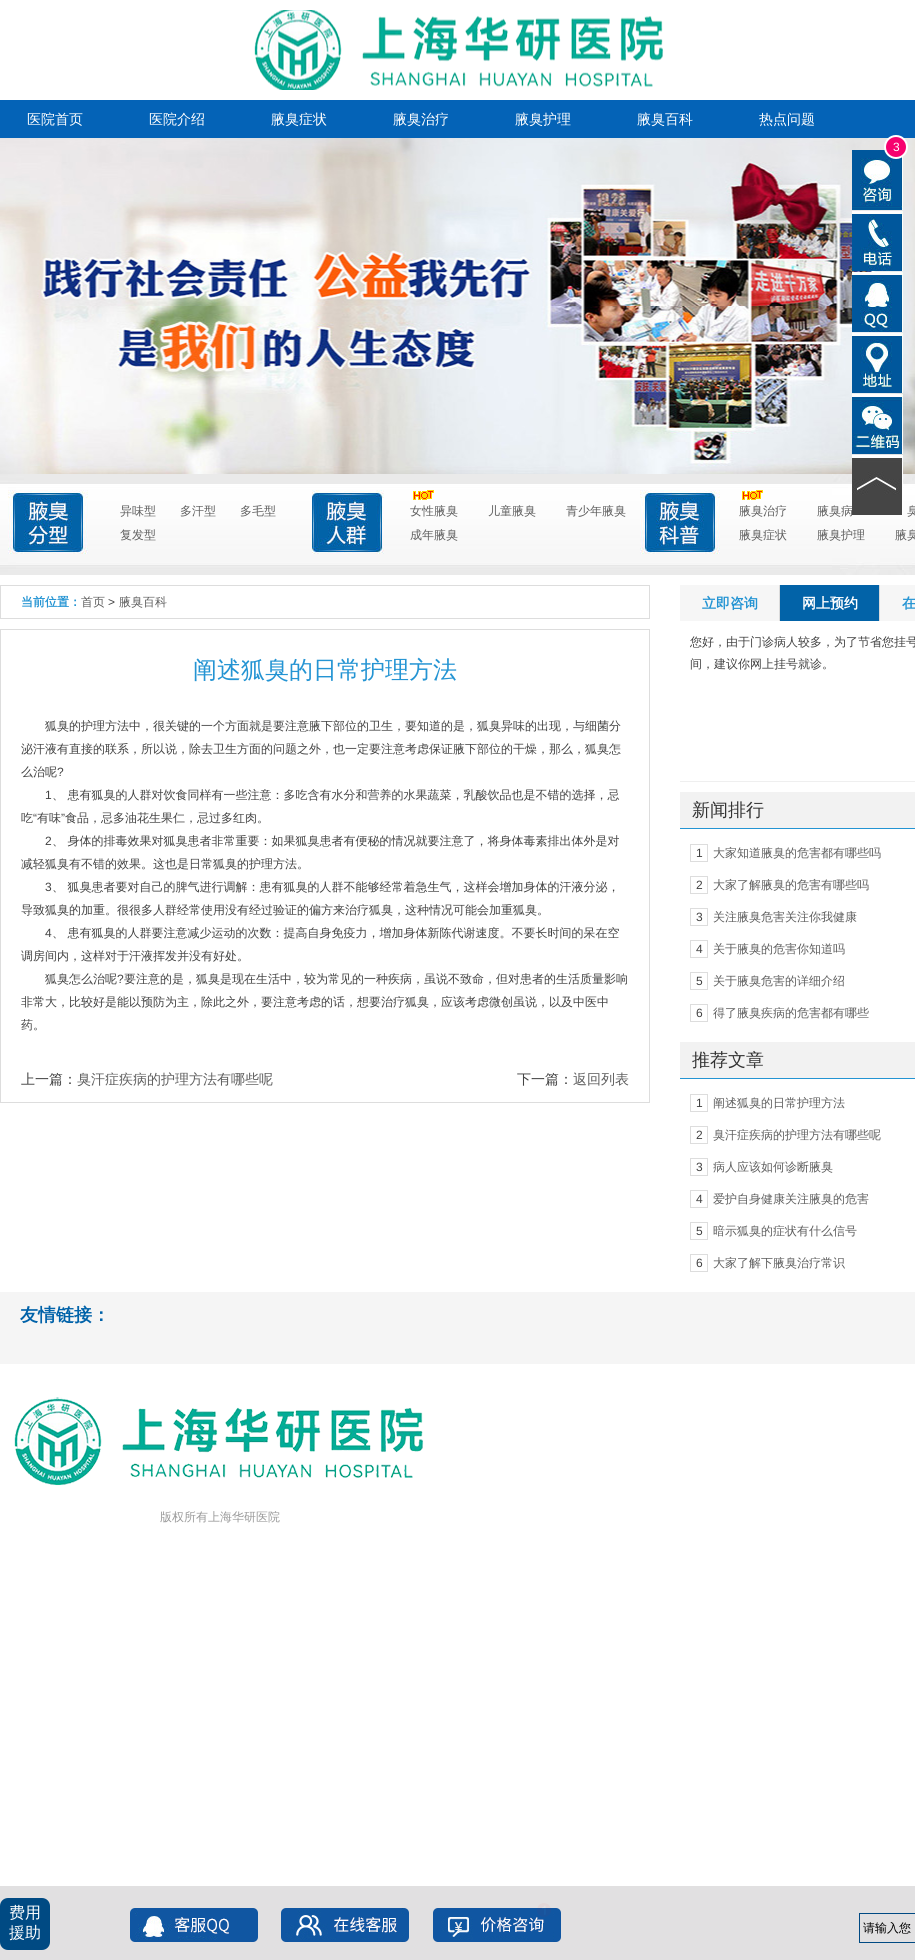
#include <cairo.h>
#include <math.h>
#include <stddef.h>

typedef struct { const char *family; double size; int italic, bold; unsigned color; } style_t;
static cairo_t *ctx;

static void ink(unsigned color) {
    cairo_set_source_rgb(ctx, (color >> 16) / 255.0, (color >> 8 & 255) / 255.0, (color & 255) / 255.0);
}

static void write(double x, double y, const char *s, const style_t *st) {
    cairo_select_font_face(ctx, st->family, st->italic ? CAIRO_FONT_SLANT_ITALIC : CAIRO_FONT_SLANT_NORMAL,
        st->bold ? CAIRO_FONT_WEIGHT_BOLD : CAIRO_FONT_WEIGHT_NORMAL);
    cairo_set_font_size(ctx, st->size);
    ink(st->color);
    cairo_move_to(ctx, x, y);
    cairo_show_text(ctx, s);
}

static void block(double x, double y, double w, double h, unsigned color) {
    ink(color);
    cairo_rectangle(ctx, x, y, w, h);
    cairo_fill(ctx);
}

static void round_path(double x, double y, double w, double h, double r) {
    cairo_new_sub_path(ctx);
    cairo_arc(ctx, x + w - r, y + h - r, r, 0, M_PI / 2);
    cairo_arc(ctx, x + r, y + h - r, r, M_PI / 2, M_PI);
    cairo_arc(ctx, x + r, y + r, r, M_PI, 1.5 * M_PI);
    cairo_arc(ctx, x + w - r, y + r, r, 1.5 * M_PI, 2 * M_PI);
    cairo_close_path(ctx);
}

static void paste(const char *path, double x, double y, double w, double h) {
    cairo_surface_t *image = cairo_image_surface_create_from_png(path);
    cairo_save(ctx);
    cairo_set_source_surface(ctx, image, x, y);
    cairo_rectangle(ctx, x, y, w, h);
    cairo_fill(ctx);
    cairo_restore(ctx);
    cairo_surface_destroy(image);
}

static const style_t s1 = {"WenQuanYi Zen Hei Medium", 14, 0, 0, 0xffffff};
static const style_t s2 = {"Liberation Sans", 12, 0, 0, 0xffffff};
static const style_t s3 = {"WenQuanYi Zen Hei Medium", 12, 0, 0, 0x5e5e5e};
static const style_t s4 = {"WenQuanYi Zen Hei", 12, 0, 1, 0x2494d3};
static const style_t s5 = {"Liberation Sans", 12, 0, 0, 0x424242};
static const style_t s6 = {"WenQuanYi Zen Hei Medium", 24, 0, 0, 0x2494d3};
static const style_t s7 = {"WenQuanYi Zen Hei Medium", 12, 0, 0, 0x424242};
static const style_t s8 = {"WenQuanYi Zen Hei Medium", 14, 0, 0, 0x424242};
static const style_t s9 = {"WenQuanYi Zen Hei Medium", 14, 0, 0, 0x5e5e5e};
static const style_t s10 = {"WenQuanYi Zen Hei", 14, 0, 1, 0x2494d3};
static const style_t s11 = {"WenQuanYi Zen Hei", 14, 0, 1, 0xffffff};
static const style_t s12 = {"WenQuanYi Zen Hei Medium", 18, 0, 0, 0x333333};
static const style_t s13 = {"WenQuanYi Zen Hei", 18, 0, 1, 0x0062a9};
static const style_t s14 = {"WenQuanYi Zen Hei Medium", 12, 0, 0, 0x999999};
static const style_t s15 = {"WenQuanYi Zen Hei Medium", 16, 0, 0, 0xffffff};
static const style_t s16 = {"WenQuanYi Zen Hei Medium", 12, 0, 0, 0x000000};

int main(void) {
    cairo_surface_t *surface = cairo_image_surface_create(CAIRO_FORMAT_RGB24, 915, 1960);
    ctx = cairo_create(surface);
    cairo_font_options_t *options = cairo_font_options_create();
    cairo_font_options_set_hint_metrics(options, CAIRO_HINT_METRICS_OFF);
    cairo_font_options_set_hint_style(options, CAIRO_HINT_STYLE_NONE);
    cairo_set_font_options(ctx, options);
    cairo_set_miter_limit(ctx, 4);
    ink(0xffffff);
    cairo_paint(ctx);
    paste("pic1.png", 254, 10, 410, 80);
    block(0, 100, 915, 38, 0x0463b7);
    write(27, 124, "医院首页", &s1);
    write(149, 124, "医院介绍", &s1);
    write(271, 124, "腋臭症状", &s1);
    write(393, 124, "腋臭治疗", &s1);
    write(515, 124, "腋臭护理", &s1);
    write(637, 124, "腋臭百科", &s1);
    write(759, 124, "热点问题", &s1);
    paste("pic2.png", 0, 138, 915, 168);
    paste("pic3.png", 0, 306, 915, 168);
    paste("pic4.png", 852, 150, 51, 60);
    ink(0xf7016f);
    cairo_arc(ctx, 896, 147, 11, 0, 2 * M_PI);
    cairo_fill_preserve(ctx);
    ink(0xffffff);
    cairo_stroke(ctx);
    write(893, 151, "3", &s2);
    paste("pic5.png", 852, 211, 51, 60);
    paste("pic6.png", 852, 272, 51, 60);
    paste("pic7.png", 852, 333, 51, 60);
    paste("pic8.png", 852, 394, 51, 60);
    paste("pic10.png", 0, 474, 915, 101);
    write(817, 515, "腋臭病", &s3);
    paste("pic9.png", 852, 455, 51, 60);
    write(120, 515, "异味型", &s3);
    write(180, 515, "多汗型", &s3);
    write(240, 515, "多毛型", &s3);
    write(120, 539, "复发型", &s3);
    paste("pic11.png", 413, 490, 21, 10);
    write(410, 515, "女性腋臭", &s3);
    write(488, 515, "儿童腋臭", &s3);
    write(566, 515, "青少年腋臭", &s3);
    write(410, 539, "成年腋臭", &s3);
    paste("pic11.png", 742, 490, 21, 10);
    write(739, 515, "腋臭治疗", &s3);
    write(907, 515, "臭", &s3);
    write(739, 539, "腋臭症状", &s3);
    write(817, 539, "腋臭护理", &s3);
    write(895, 539, "腋臭", &s3);
    cairo_rectangle(ctx, 0.5, 585.5, 649, 33);
    ink(0xdddddd);
    cairo_set_line_width(ctx, 1);
    cairo_stroke(ctx);
    write(21, 606, "当前位置：", &s4);
    write(81, 606, "首页", &s3);
    write(108, 606, ">", &s5);
    write(119, 606, "腋臭百科", &s3);
    cairo_rectangle(ctx, 0.5, 629.5, 649, 473);
    ink(0xdddddd);
    cairo_stroke(ctx);
    write(193, 678, "阐述狐臭的日常护理方法", &s6);
    write(45, 730, "狐臭的护理方法中，很关键的一个方面就是要注意腋下部位的卫生，要知道的是，狐臭异味的出现，与细菌分", &s7);
    write(21, 753, "泌汗液有直接的联系，所以说，除去卫生方面的问题之外，也一定要注意考虑保证腋下部位的干燥，那么，狐臭怎", &s7);
    write(21, 776, "么治呢", &s7);
    write(57, 776, "?", &s5);
    write(45, 799, "1", &s5);
    write(52, 799, "、 患有狐臭的人群对饮食同样有一些注意：多吃含有水分和营养的水果蔬菜，乳酸饮品也是不错的选择，忌", &s7);
    write(21, 822, "吃", &s7);
    write(33, 822, "“", &s5);
    write(37, 822, "有味", &s7);
    write(61, 822, "”", &s5);
    write(65, 822, "食品，忌多油花生果仁，忌过多红肉。", &s7);
    write(45, 845, "2", &s5);
    write(52, 845, "、 身体的排毒效果对狐臭患者非常重要：如果狐臭患者有便秘的情况就要注意了，将身体毒素排出体外是对", &s7);
    write(21, 868, "减轻狐臭有不错的效果。这也是日常狐臭的护理方法。", &s7);
    write(45, 891, "3", &s5);
    write(52, 891, "、 狐臭患者要对自己的脾气进行调解：患有狐臭的人群不能够经常着急生气，这样会增加身体的汗液分泌，", &s7);
    write(21, 914, "导致狐臭的加重。很很多人群经常使用没有经过验证的偏方来治疗狐臭，这种情况可能会加重狐臭。", &s7);
    write(45, 937, "4", &s5);
    write(52, 937, "、 患有狐臭的人群要注意减少运动的次数：提高自身免疫力，增加身体新陈代谢速度。不要长时间的呆在空", &s7);
    write(21, 960, "调房间内，这样对于汗液挥发并没有好处。", &s7);
    write(45, 983, "狐臭怎么治呢", &s7);
    write(117, 983, "?", &s5);
    write(124, 983, "要注意的是，狐臭是现在生活中，较为常见的一种疾病，虽说不致命，但对患者的生活质量影响", &s7);
    write(21, 1006, "非常大，比较好是能以预防为主，除此之外，要注意考虑的话，想要治疗狐臭，应该考虑微创虽说，以及中医中", &s7);
    write(21, 1029, "药。", &s7);
    write(21, 1084, "上一篇：", &s8);
    write(77, 1084, "臭汗症疾病的护理方法有哪些呢", &s9);
    write(517, 1084, "下一篇：", &s8);
    write(573, 1084, "返回列表", &s9);
    block(680, 781, 235, 1, 0xefefef);
    block(680, 585, 99, 36, 0xf6f6f6);
    write(702, 608, "立即咨询", &s10);
    block(780, 585, 99, 36, 0x0263a8);
    block(779, 585, 1, 36, 0xdbdbdb);
    write(802, 608, "网上预约", &s11);
    block(880, 585, 35, 36, 0xf6f6f6);
    block(879, 585, 1, 36, 0xdbdbdb);
    write(902, 608, "在", &s10);
    write(690, 646, "您好，由于门诊病人较多，为了节省您挂号", &s7);
    write(690, 668, "间，建议你网上挂号就诊。", &s7);
    block(680, 792, 235, 36, 0xf2f2f2);
    block(680, 828, 235, 1, 0x2494d3);
    write(692, 816, "新闻排行", &s12);
    cairo_rectangle(ctx, 690.5, 844.5, 17, 17);
    ink(0xdddddd);
    cairo_stroke(ctx);
    write(696, 857, "1", &s5);
    write(713, 857, "大家知道腋臭的危害都有哪些吗", &s3);
    cairo_rectangle(ctx, 690.5, 876.5, 17, 17);
    ink(0xdddddd);
    cairo_stroke(ctx);
    write(696, 889, "2", &s5);
    write(713, 889, "大家了解腋臭的危害有哪些吗", &s3);
    cairo_rectangle(ctx, 690.5, 908.5, 17, 17);
    ink(0xdddddd);
    cairo_stroke(ctx);
    write(696, 921, "3", &s5);
    write(713, 921, "关注腋臭危害关注你我健康", &s3);
    cairo_rectangle(ctx, 690.5, 940.5, 17, 17);
    ink(0xdddddd);
    cairo_stroke(ctx);
    write(696, 953, "4", &s5);
    write(713, 953, "关于腋臭的危害你知道吗", &s3);
    cairo_rectangle(ctx, 690.5, 972.5, 17, 17);
    ink(0xdddddd);
    cairo_stroke(ctx);
    write(696, 985, "5", &s5);
    write(713, 985, "关于腋臭危害的详细介绍", &s3);
    cairo_rectangle(ctx, 690.5, 1004.5, 17, 17);
    ink(0xdddddd);
    cairo_stroke(ctx);
    write(696, 1017, "6", &s5);
    write(713, 1017, "得了腋臭疾病的危害都有哪些", &s3);
    block(680, 1042, 235, 36, 0xf2f2f2);
    block(680, 1078, 235, 1, 0x2494d3);
    write(692, 1066, "推荐文章", &s12);
    cairo_rectangle(ctx, 690.5, 1094.5, 17, 17);
    ink(0xdddddd);
    cairo_stroke(ctx);
    write(696, 1107, "1", &s5);
    write(713, 1107, "阐述狐臭的日常护理方法", &s3);
    cairo_rectangle(ctx, 690.5, 1126.5, 17, 17);
    ink(0xdddddd);
    cairo_stroke(ctx);
    write(696, 1139, "2", &s5);
    write(713, 1139, "臭汗症疾病的护理方法有哪些呢", &s3);
    cairo_rectangle(ctx, 690.5, 1158.5, 17, 17);
    ink(0xdddddd);
    cairo_stroke(ctx);
    write(696, 1171, "3", &s5);
    write(713, 1171, "病人应该如何诊断腋臭", &s3);
    cairo_rectangle(ctx, 690.5, 1190.5, 17, 17);
    ink(0xdddddd);
    cairo_stroke(ctx);
    write(696, 1203, "4", &s5);
    write(713, 1203, "爱护自身健康关注腋臭的危害", &s3);
    cairo_rectangle(ctx, 690.5, 1222.5, 17, 17);
    ink(0xdddddd);
    cairo_stroke(ctx);
    write(696, 1235, "5", &s5);
    write(713, 1235, "暗示狐臭的症状有什么信号", &s3);
    cairo_rectangle(ctx, 690.5, 1254.5, 17, 17);
    ink(0xdddddd);
    cairo_stroke(ctx);
    write(696, 1267, "6", &s5);
    write(713, 1267, "大家了解下腋臭治疗常识", &s3);
    block(0, 1292, 915, 72, 0xf5f5f5);
    write(20, 1321, "友情链接：", &s13);
    paste("pic12.png", 14, 1397, 410, 89);
    write(160, 1521, "版权所有上海华研医院", &s14);
    block(0, 1886, 915, 74, 0xe1e0e1);
    ink(0x004a83);
    round_path(0, 1898, 50, 52, 8);
    cairo_fill(ctx);
    write(9, 1918, "费用", &s15);
    write(9, 1938, "援助", &s15);
    paste("pic13.png", 130, 1908, 128, 34);
    paste("pic14.png", 281, 1908, 128, 34);
    paste("pic16.png", 433, 1908, 128, 34);
    paste("pic15.png", 537, 1903, 14, 14);
    cairo_rectangle(ctx, 859.5, 1913.5, 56, 29);
    ink(0x004a83);
    cairo_stroke(ctx);
    write(863, 1932, "请输入您", &s16);
    cairo_surface_write_to_png(surface, "screenshot.png");
    cairo_font_options_destroy(options);
    cairo_destroy(ctx);
    cairo_surface_destroy(surface);
    return 0;
}
